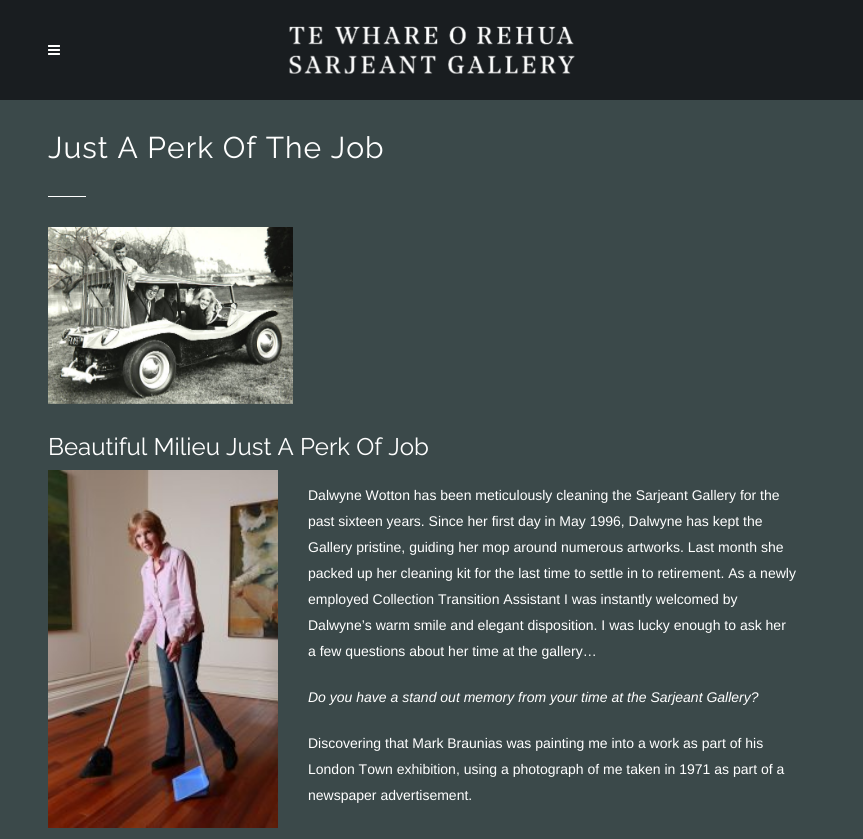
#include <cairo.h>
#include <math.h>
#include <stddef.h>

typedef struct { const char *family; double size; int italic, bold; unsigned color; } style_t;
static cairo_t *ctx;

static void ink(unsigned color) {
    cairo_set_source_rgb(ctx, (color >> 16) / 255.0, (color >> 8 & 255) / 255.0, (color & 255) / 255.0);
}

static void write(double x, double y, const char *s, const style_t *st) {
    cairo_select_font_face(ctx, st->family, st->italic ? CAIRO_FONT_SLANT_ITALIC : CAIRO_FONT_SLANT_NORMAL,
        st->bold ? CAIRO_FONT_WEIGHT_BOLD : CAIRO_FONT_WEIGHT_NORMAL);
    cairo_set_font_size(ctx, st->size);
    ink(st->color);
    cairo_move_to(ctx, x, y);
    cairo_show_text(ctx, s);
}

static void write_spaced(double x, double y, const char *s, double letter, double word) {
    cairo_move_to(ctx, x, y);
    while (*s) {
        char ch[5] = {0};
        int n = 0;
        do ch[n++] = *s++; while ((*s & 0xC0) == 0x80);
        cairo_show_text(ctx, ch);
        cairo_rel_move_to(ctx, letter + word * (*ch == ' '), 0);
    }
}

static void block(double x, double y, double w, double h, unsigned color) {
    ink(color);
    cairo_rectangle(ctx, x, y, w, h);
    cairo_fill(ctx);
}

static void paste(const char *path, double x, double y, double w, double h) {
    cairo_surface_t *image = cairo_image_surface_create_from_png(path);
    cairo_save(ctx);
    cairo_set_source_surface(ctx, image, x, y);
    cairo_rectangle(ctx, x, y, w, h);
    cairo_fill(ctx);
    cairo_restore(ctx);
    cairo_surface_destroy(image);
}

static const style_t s1 = {"Raleway", 24, 0, 0, 0xffffff};
static const style_t s2 = {"Liberation Sans", 14, 0, 0, 0xffffff};
static const style_t s3 = {"Liberation Sans", 14, 1, 0, 0xffffff};

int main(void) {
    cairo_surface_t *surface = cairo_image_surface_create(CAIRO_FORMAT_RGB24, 863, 839);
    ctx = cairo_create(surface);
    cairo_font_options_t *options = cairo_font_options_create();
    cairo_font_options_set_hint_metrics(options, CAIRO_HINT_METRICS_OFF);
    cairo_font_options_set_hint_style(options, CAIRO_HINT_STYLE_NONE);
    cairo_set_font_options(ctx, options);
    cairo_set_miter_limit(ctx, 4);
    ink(0x3b494a);
    cairo_paint(ctx);
    block(0, 0, 863, 100, 0x191d20);
    paste("pic1.png", 48, 45, 12, 10);
    paste("pic2.png", 289, 26, 286, 48);
    cairo_select_font_face(ctx, "Raleway", CAIRO_FONT_SLANT_NORMAL, CAIRO_FONT_WEIGHT_NORMAL);
    cairo_set_font_size(ctx, 30);
    ink(0xffffff);
    write_spaced(48, 158, "Just A Perk Of The Job", 1, 0);
    block(48, 196, 38, 1, 0xffffff);
    paste("pic3.png", 48, 227, 245, 177);
    write(48, 455, "Beautiful Milieu Just A Perk Of Job", &s1);
    paste("pic4.png", 48, 470, 230, 358);
    write(308, 500, "Dalwyne Wotton has been meticulously cleaning the Sarjeant Gallery for the", &s2);
    write(308, 526, "past sixteen years. Since her first day in May 1996, Dalwyne has kept the", &s2);
    write(308, 552, "Gallery pristine, guiding her mop around numerous artworks. Last month she", &s2);
    write(308, 578, "packed up her cleaning kit for the last time to settle in to retirement. As a newly", &s2);
    write(308, 604, "employed Collection Transition Assistant I was instantly welcomed by", &s2);
    write(308, 630, "Dalwyne’s warm smile and elegant disposition. I was lucky enough to ask her", &s2);
    write(308, 656, "a few questions about her time at the gallery…", &s2);
    write(308, 702, "Do you have a stand out memory from your time at the Sarjeant Gallery?", &s3);
    write(308, 748, "Discovering that Mark Braunias was painting me into a work as part of his", &s2);
    write(308, 774, "London Town exhibition, using a photograph of me taken in 1971 as part of a", &s2);
    write(308, 800, "newspaper advertisement.", &s2);
    cairo_surface_write_to_png(surface, "screenshot.png");
    cairo_font_options_destroy(options);
    cairo_destroy(ctx);
    cairo_surface_destroy(surface);
    return 0;
}
